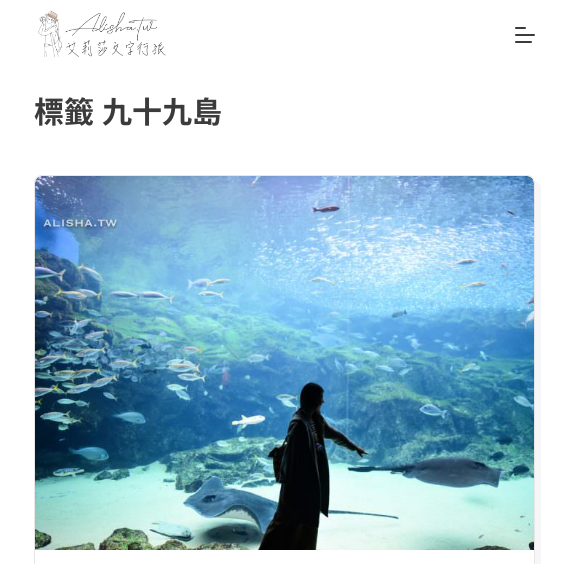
#include <cairo.h>
#include <math.h>
#include <stddef.h>

typedef struct { const char *family; double size; int italic, bold; unsigned color; } style_t;
static cairo_t *ctx;

static void ink(unsigned color) {
    cairo_set_source_rgb(ctx, (color >> 16) / 255.0, (color >> 8 & 255) / 255.0, (color & 255) / 255.0);
}

static void write(double x, double y, const char *s, const style_t *st) {
    cairo_select_font_face(ctx, st->family, st->italic ? CAIRO_FONT_SLANT_ITALIC : CAIRO_FONT_SLANT_NORMAL,
        st->bold ? CAIRO_FONT_WEIGHT_BOLD : CAIRO_FONT_WEIGHT_NORMAL);
    cairo_set_font_size(ctx, st->size);
    ink(st->color);
    cairo_move_to(ctx, x, y);
    cairo_show_text(ctx, s);
}

static void round_path(double x, double y, double w, double h, double r) {
    cairo_new_sub_path(ctx);
    cairo_arc(ctx, x + w - r, y + h - r, r, 0, M_PI / 2);
    cairo_arc(ctx, x + r, y + h - r, r, M_PI / 2, M_PI);
    cairo_arc(ctx, x + r, y + r, r, M_PI, 1.5 * M_PI);
    cairo_arc(ctx, x + w - r, y + r, r, 1.5 * M_PI, 2 * M_PI);
    cairo_close_path(ctx);
}

static void paste(const char *path, double x, double y, double w, double h) {
    cairo_surface_t *image = cairo_image_surface_create_from_png(path);
    cairo_save(ctx);
    cairo_set_source_surface(ctx, image, x, y);
    cairo_rectangle(ctx, x, y, w, h);
    cairo_fill(ctx);
    cairo_restore(ctx);
    cairo_surface_destroy(image);
}

static const style_t s1 = {"Noto Sans TC", 30, 0, 1, 0x3b3b3b};

int main(void) {
    cairo_surface_t *surface = cairo_image_surface_create(CAIRO_FORMAT_RGB24, 569, 564);
    ctx = cairo_create(surface);
    cairo_font_options_t *options = cairo_font_options_create();
    cairo_font_options_set_hint_metrics(options, CAIRO_HINT_METRICS_OFF);
    cairo_font_options_set_hint_style(options, CAIRO_HINT_STYLE_NONE);
    cairo_set_font_options(ctx, options);
    cairo_set_miter_limit(ctx, 4);
    ink(0xffffff);
    cairo_paint(ctx);
    paste("pic1.png", 38, 10, 128, 47);
    ink(0x3b3b3b);
    round_path(515, 27, 11, 2, 1);
    cairo_fill(ctx);
    round_path(515, 34, 20, 2, 1);
    cairo_fill(ctx);
    round_path(515, 41, 17, 2, 1);
    cairo_fill(ctx);
    write(34, 123, "標籤", &s1);
    write(102, 123, "九十九島", &s1);
    ink(0xf6f6f8);
    cairo_new_path(ctx);
    cairo_move_to(ctx, 40, 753);
    cairo_curve_to(ctx, 41, 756, 44, 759, 48, 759);
    cairo_line_to(ctx, 533, 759);
    cairo_curve_to(ctx, 537, 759, 541, 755, 541, 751);
    cairo_line_to(ctx, 541, 189);
    cairo_curve_to(ctx, 541, 185, 538, 182, 535, 181);
    cairo_line_to(ctx, 535, 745);
    cairo_curve_to(ctx, 535, 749, 531, 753, 527, 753);
    cairo_close_path(ctx);
    cairo_fill(ctx);
    round_path(34.5, 175.5, 500, 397, 7.5);
    ink(0xe7e7e7);
    cairo_set_line_width(ctx, 1);
    cairo_stroke(ctx);
    paste("pic2.png", 35, 176, 499, 374);
    cairo_surface_write_to_png(surface, "screenshot.png");
    cairo_font_options_destroy(options);
    cairo_destroy(ctx);
    cairo_surface_destroy(surface);
    return 0;
}
